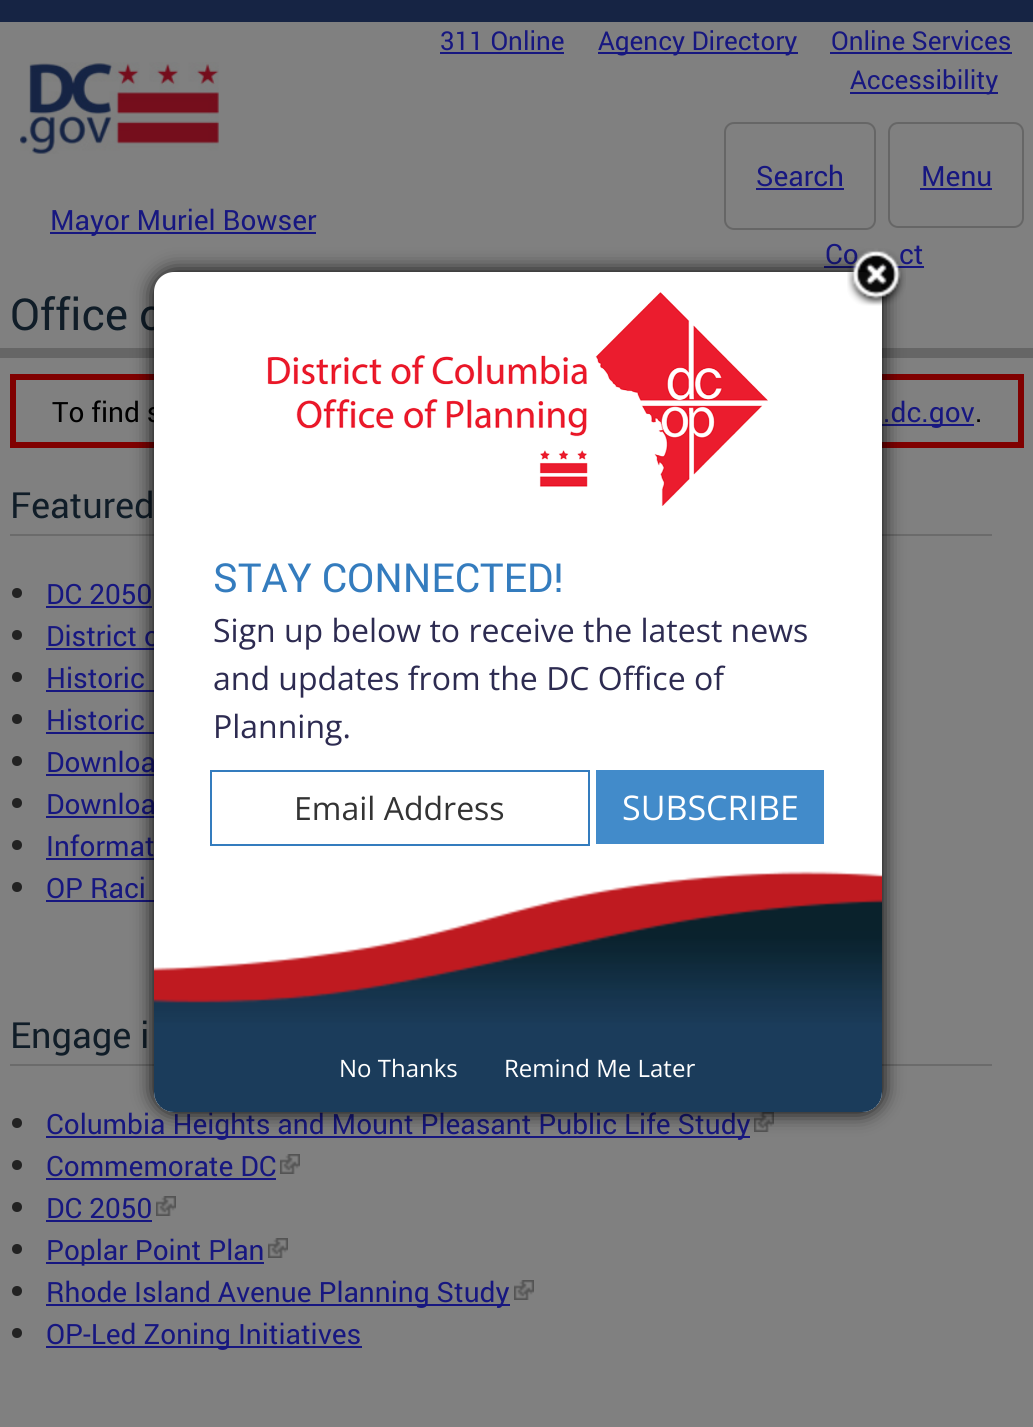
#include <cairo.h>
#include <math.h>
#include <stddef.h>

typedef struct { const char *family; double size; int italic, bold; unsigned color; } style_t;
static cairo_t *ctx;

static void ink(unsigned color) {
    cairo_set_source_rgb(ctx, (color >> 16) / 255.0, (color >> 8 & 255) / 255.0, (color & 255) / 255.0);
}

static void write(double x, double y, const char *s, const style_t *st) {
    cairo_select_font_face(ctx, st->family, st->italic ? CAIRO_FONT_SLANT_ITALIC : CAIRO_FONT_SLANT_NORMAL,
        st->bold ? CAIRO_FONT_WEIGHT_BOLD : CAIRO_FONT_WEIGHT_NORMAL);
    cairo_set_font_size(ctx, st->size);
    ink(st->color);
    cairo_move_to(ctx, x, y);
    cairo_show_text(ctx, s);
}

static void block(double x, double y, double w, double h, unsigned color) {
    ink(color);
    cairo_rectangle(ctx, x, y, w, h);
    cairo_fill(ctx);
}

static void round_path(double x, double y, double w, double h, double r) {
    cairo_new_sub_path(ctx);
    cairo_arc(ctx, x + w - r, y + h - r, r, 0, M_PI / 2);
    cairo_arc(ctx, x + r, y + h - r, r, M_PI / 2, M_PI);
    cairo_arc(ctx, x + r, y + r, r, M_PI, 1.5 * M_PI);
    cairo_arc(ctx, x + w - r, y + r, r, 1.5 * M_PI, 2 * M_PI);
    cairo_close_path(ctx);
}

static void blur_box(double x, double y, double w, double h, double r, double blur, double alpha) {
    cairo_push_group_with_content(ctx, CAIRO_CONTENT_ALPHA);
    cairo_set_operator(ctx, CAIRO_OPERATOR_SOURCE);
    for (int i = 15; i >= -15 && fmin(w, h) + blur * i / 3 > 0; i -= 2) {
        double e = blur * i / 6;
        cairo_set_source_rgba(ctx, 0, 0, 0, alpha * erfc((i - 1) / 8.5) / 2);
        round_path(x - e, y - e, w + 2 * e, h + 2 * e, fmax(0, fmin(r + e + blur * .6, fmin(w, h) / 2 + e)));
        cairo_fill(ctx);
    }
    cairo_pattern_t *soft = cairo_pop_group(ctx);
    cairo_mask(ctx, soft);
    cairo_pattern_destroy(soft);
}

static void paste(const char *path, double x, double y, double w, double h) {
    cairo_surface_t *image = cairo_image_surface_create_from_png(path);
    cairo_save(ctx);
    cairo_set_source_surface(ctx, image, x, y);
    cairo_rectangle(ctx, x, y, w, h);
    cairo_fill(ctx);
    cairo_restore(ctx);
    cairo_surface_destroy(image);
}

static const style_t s1 = {"Roboto", 26, 0, 0, 0x171780};
static const style_t s2 = {"Roboto", 28, 0, 0, 0x171780};
static const style_t s3 = {"Roboto", 44, 0, 0, 0x101d28};
static const style_t s4 = {"Roboto", 28, 0, 0, 0x000000};
static const style_t s5 = {"Roboto", 36, 0, 0, 0x101d28};
static const style_t s6 = {"Roboto", 40, 0, 0, 0x347cbe};
static const style_t s7 = {"Open Sans", 32, 0, 0, 0x2d2b51};
static const style_t s8 = {"Open Sans", 32, 0, 0, 0x333333};
static const style_t s9 = {"Open Sans", 34, 0, 0, 0xffffff};
static const style_t s10 = {"Open Sans", 24, 0, 0, 0xffffff};

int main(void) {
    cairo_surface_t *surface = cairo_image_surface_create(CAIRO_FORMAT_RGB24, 1033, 1427);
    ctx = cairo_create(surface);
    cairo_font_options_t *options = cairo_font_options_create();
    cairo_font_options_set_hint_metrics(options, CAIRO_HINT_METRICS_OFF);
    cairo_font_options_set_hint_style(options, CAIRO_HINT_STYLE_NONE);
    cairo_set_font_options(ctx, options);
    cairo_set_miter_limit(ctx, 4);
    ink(0x808080);
    cairo_paint(ctx);
    block(0, 0, 1033, 22, 0x162444);
    write(440, 50, "311 Online", &s1);
    block(440, 52, 124, 2, 0x171780);
    block(598, 52, 200, 2, 0x171780);
    write(598, 50, "Agency Directory", &s1);
    write(831, 50, "Online Services", &s1);
    block(830, 52, 182, 2, 0x171780);
    block(850, 92, 148, 2, 0x171780);
    write(850, 89, "Accessibility", &s1);
    round_path(725, 123, 150, 106, 9);
    ink(0x666666);
    cairo_stroke(ctx);
    write(756, 186, "Search", &s2);
    block(756, 188, 88, 2, 0x171780);
    round_path(889, 123, 134, 104, 9);
    ink(0x666666);
    cairo_stroke(ctx);
    write(921, 186, "Menu", &s2);
    block(920, 188, 72, 2, 0x171780);
    paste("pic1.png", 20, 62, 199, 92);
    block(50, 232, 266, 2, 0x171780);
    write(50, 230, "Mayor Muriel Bowser", &s2);
    write(825, 264, "Co", &s2);
    write(899, 264, "ct", &s2);
    block(824, 266, 100, 2, 0x171780);
    block(0, 348, 1033, 10, 0x666666);
    write(10, 330, "Office o", &s3);
    cairo_rectangle(ctx, 13, 377, 1008, 68);
    ink(0x800000);
    cairo_set_line_width(ctx, 6);
    cairo_stroke(ctx);
    write(52, 422, "To find s", &s4);
    block(882, 424, 92, 2, 0x171780);
    write(883, 422, ".dc.gov", &s2);
    write(975, 422, ".", &s4);
    block(10, 534, 982, 2, 0x6b6b6b);
    write(10, 518, "Featured", &s5);
    ink(0x222222);
    cairo_new_path(ctx);
    cairo_arc(ctx, 17, 593, 5, 0, 2 * M_PI);
    cairo_fill(ctx);
    write(46, 604, "DC 2050", &s2);
    block(46, 606, 106, 2, 0x171780);
    ink(0x222222);
    cairo_new_path(ctx);
    cairo_arc(ctx, 17, 635, 5, 0, 2 * M_PI);
    cairo_fill(ctx);
    write(46, 646, "District o", &s2);
    block(46, 648, 108, 2, 0x171780);
    ink(0x222222);
    cairo_new_path(ctx);
    cairo_arc(ctx, 17, 677, 5, 0, 2 * M_PI);
    cairo_fill(ctx);
    write(46, 688, "Historic", &s2);
    block(46, 690, 108, 2, 0x171780);
    ink(0x222222);
    cairo_new_path(ctx);
    cairo_arc(ctx, 17, 719, 5, 0, 2 * M_PI);
    cairo_fill(ctx);
    write(46, 730, "Historic", &s2);
    block(46, 732, 108, 2, 0x171780);
    ink(0x222222);
    cairo_new_path(ctx);
    cairo_arc(ctx, 17, 761, 5, 0, 2 * M_PI);
    cairo_fill(ctx);
    write(46, 772, "Downloa", &s2);
    block(46, 774, 108, 2, 0x171780);
    ink(0x222222);
    cairo_new_path(ctx);
    cairo_arc(ctx, 17, 803, 5, 0, 2 * M_PI);
    cairo_fill(ctx);
    write(46, 814, "Downloa", &s2);
    block(46, 816, 108, 2, 0x171780);
    ink(0x222222);
    cairo_new_path(ctx);
    cairo_arc(ctx, 17, 845, 5, 0, 2 * M_PI);
    cairo_fill(ctx);
    write(46, 856, "Informat", &s2);
    block(46, 858, 108, 2, 0x171780);
    ink(0x222222);
    cairo_new_path(ctx);
    cairo_arc(ctx, 17, 887, 5, 0, 2 * M_PI);
    cairo_fill(ctx);
    write(46, 898, "OP Raci", &s2);
    block(46, 900, 108, 2, 0x171780);
    block(10, 1064, 982, 2, 0x6b6b6b);
    write(10, 1048, "Engage i", &s5);
    ink(0x222222);
    cairo_new_path(ctx);
    cairo_arc(ctx, 17, 1123, 5, 0, 2 * M_PI);
    cairo_fill(ctx);
    block(46, 1136, 704, 2, 0x171780);
    write(46, 1134, "Columbia Heights and Mount Pleasant Public Life Study", &s2);
    paste("pic2.png", 754, 1112, 20, 20);
    ink(0x222222);
    cairo_arc(ctx, 17, 1165, 5, 0, 2 * M_PI);
    cairo_fill(ctx);
    write(46, 1176, "Commemorate DC", &s2);
    block(46, 1178, 230, 2, 0x171780);
    paste("pic2.png", 280, 1154, 20, 20);
    ink(0x222222);
    cairo_arc(ctx, 17, 1207, 5, 0, 2 * M_PI);
    cairo_fill(ctx);
    write(46, 1218, "DC 2050", &s2);
    block(46, 1220, 106, 2, 0x171780);
    paste("pic2.png", 156, 1196, 20, 20);
    ink(0x222222);
    cairo_arc(ctx, 17, 1249, 5, 0, 2 * M_PI);
    cairo_fill(ctx);
    block(46, 1262, 218, 2, 0x171780);
    write(46, 1260, "Poplar Point Plan", &s2);
    paste("pic2.png", 268, 1238, 20, 20);
    ink(0x222222);
    cairo_arc(ctx, 17, 1291, 5, 0, 2 * M_PI);
    cairo_fill(ctx);
    block(46, 1304, 464, 2, 0x171780);
    write(46, 1302, "Rhode Island Avenue Planning Study", &s2);
    paste("pic2.png", 514, 1280, 20, 20);
    ink(0x222222);
    cairo_arc(ctx, 17, 1333, 5, 0, 2 * M_PI);
    cairo_fill(ctx);
    block(46, 1346, 316, 2, 0x171780);
    write(46, 1344, "OP-Led Zoning Initiatives", &s2);
    ink(0x000000);
    blur_box(154, 272, 728, 840, 20, 10, 1);
    ink(0xffffff);
    round_path(154, 272, 728, 840, 20);
    cairo_fill(ctx);
    paste("pic3.png", 154, 871, 728, 241);
    paste("pic4.png", 847, 248, 59, 58);
    paste("pic5.png", 267, 292, 501, 214);
    write(213, 592, "STAY CONNECTED!", &s6);
    write(213, 642, "Sign up below to receive the latest news", &s7);
    write(213, 690, "and updates from the DC Office of", &s7);
    write(213, 738, "Planning.", &s7);
    cairo_rectangle(ctx, 211, 771, 378, 74);
    ink(0x347cbe);
    cairo_set_line_width(ctx, 2);
    cairo_stroke(ctx);
    write(294, 820, "Email Address", &s8);
    block(596, 770, 228, 74, 0x428bca);
    write(622, 820, "SUBSCRIBE", &s9);
    write(339, 1077, "No Thanks", &s10);
    write(504, 1077, "Remind Me Later", &s10);
    cairo_surface_write_to_png(surface, "screenshot.png");
    cairo_font_options_destroy(options);
    cairo_destroy(ctx);
    cairo_surface_destroy(surface);
    return 0;
}
